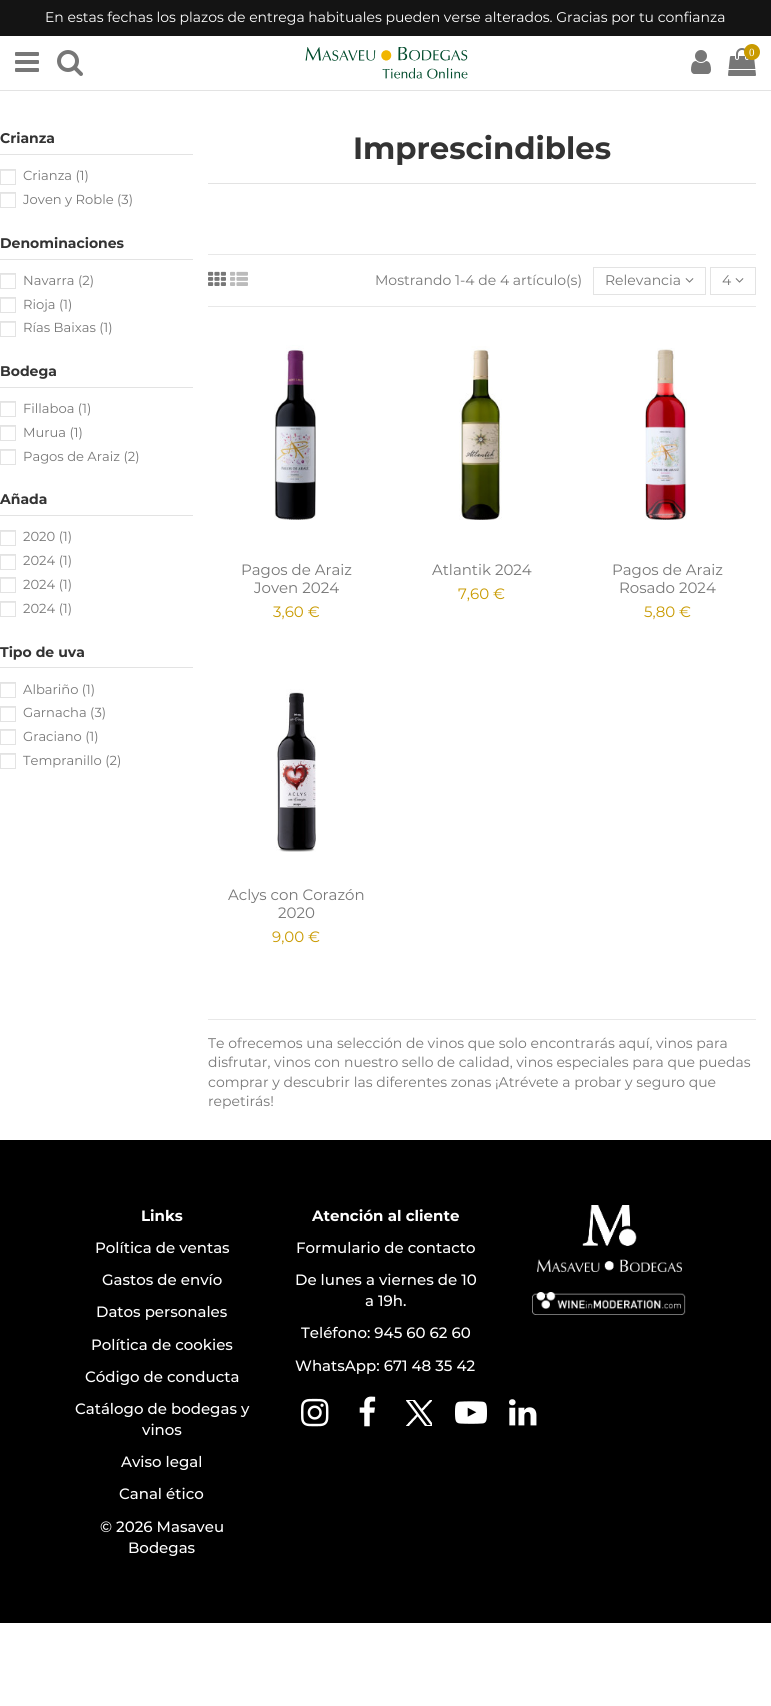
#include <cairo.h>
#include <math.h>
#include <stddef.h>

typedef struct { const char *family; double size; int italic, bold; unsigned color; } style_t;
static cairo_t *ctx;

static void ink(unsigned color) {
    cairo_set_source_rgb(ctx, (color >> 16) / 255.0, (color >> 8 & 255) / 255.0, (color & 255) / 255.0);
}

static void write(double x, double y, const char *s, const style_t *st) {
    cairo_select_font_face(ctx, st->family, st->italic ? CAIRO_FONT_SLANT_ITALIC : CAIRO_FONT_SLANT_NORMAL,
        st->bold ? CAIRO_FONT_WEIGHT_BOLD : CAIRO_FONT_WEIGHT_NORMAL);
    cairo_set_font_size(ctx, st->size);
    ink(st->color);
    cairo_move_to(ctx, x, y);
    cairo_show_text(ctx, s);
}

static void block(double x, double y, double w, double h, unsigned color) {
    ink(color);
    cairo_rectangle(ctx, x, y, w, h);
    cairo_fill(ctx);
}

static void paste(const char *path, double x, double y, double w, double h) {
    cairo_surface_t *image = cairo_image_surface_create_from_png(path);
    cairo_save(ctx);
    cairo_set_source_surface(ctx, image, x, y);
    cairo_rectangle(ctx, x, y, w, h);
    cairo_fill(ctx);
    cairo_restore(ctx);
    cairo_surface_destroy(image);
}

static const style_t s1 = {"Montserrat", 14, 0, 0, 0xffffff};
static const style_t s2 = {"Liberation Serif", 11, 0, 0, 0xffffff};
static const style_t s3 = {"Montserrat", 14, 0, 1, 0x333333};
static const style_t s4 = {"Montserrat", 13.1, 0, 0, 0x777777};
static const style_t s5 = {"Montserrat", 30.75, 0, 1, 0x333333};
static const style_t s6 = {"Montserrat", 14, 0, 0, 0x777777};
static const style_t s7 = {"Montserrat", 15, 0, 0, 0x777777};
static const style_t s8 = {"Montserrat", 15, 0, 0, 0xc99a00};
static const style_t s9 = {"Montserrat", 15, 0, 1, 0xffffff};
static const style_t s10 = {"Montserrat Medium", 15, 0, 0, 0xffffff};

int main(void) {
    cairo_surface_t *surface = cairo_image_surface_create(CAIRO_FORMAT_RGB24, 771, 1706);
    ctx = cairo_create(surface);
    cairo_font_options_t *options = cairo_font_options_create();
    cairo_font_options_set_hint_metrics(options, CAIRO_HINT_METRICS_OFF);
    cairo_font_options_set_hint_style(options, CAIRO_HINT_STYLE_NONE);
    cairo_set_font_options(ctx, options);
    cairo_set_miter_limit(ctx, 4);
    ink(0xffffff);
    cairo_paint(ctx);
    block(0, 0, 771, 36, 0x141414);
    write(45, 22, "En estas fechas los plazos de entrega habituales pueden verse alterados. Gracias por tu confianza", &s1);
    block(0, 90, 771, 1, 0xe3e3e3);
    paste("pic1.png", 15, 52, 24, 20);
    paste("pic2.png", 57, 50, 26, 26);
    paste("pic3.png", 305, 47, 163, 32);
    paste("pic4.png", 691, 50, 20, 24);
    paste("pic5.png", 728, 48, 28, 28);
    ink(0xc99a00);
    cairo_arc(ctx, 752, 52, 8, 0, 2 * M_PI);
    cairo_fill(ctx);
    write(749, 56, "0", &s2);
    block(0, 154, 193, 1, 0xe3e3e3);
    write(0, 143, "Crianza", &s3);
    block(1, 170, 14, 1, 0xe8e8e8);
    cairo_rectangle(ctx, 0.5, 169.5, 15, 15);
    ink(0xe3e3e3);
    cairo_set_line_width(ctx, 1);
    cairo_stroke(ctx);
    write(23, 180, "Crianza (1)", &s4);
    block(1, 193, 14, 1, 0xe8e8e8);
    cairo_rectangle(ctx, 0.5, 192.5, 15, 15);
    ink(0xe3e3e3);
    cairo_stroke(ctx);
    write(23, 204, "Joven y Roble (3)", &s4);
    block(0, 259, 193, 1, 0xe3e3e3);
    write(0, 248, "Denominaciones", &s3);
    block(1, 274, 14, 1, 0xe8e8e8);
    cairo_rectangle(ctx, 0.5, 273.5, 15, 15);
    ink(0xe3e3e3);
    cairo_stroke(ctx);
    write(23, 285, "Navarra (2)", &s4);
    block(1, 298, 14, 1, 0xe8e8e8);
    cairo_rectangle(ctx, 0.5, 297.5, 15, 15);
    ink(0xe3e3e3);
    cairo_stroke(ctx);
    write(23, 309, "Rioja (1)", &s4);
    block(1, 322, 14, 1, 0xe8e8e8);
    cairo_rectangle(ctx, 0.5, 321.5, 15, 15);
    ink(0xe3e3e3);
    cairo_stroke(ctx);
    write(23, 332, "Rías Baixas (1)", &s4);
    block(0, 387, 193, 1, 0xe3e3e3);
    write(0, 376, "Bodega", &s3);
    block(1, 402, 14, 1, 0xe8e8e8);
    cairo_rectangle(ctx, 0.5, 401.5, 15, 15);
    ink(0xe3e3e3);
    cairo_stroke(ctx);
    write(23, 413, "Fillaboa (1)", &s4);
    block(1, 426, 14, 1, 0xe8e8e8);
    cairo_rectangle(ctx, 0.5, 425.5, 15, 15);
    ink(0xe3e3e3);
    cairo_stroke(ctx);
    write(23, 437, "Murua (1)", &s4);
    block(1, 450, 14, 1, 0xe8e8e8);
    cairo_rectangle(ctx, 0.5, 449.5, 15, 15);
    ink(0xe3e3e3);
    cairo_stroke(ctx);
    write(23, 461, "Pagos de Araiz (2)", &s4);
    block(0, 515, 193, 1, 0xe3e3e3);
    write(0, 504, "Añada", &s3);
    block(1, 531, 14, 1, 0xe8e8e8);
    cairo_rectangle(ctx, 0.5, 530.5, 15, 15);
    ink(0xe3e3e3);
    cairo_stroke(ctx);
    write(23, 541, "2020 (1)", &s4);
    block(1, 555, 14, 1, 0xe8e8e8);
    cairo_rectangle(ctx, 0.5, 554.5, 15, 15);
    ink(0xe3e3e3);
    cairo_stroke(ctx);
    write(23, 565, "2024 (1)", &s4);
    block(1, 578, 14, 1, 0xe8e8e8);
    cairo_rectangle(ctx, 0.5, 577.5, 15, 15);
    ink(0xe3e3e3);
    cairo_stroke(ctx);
    write(23, 589, "2024 (1)", &s4);
    block(1, 602, 14, 1, 0xe8e8e8);
    cairo_rectangle(ctx, 0.5, 601.5, 15, 15);
    ink(0xe3e3e3);
    cairo_stroke(ctx);
    write(23, 613, "2024 (1)", &s4);
    block(0, 667, 193, 1, 0xe3e3e3);
    write(0, 657, "Tipo de uva", &s3);
    block(1, 683, 14, 1, 0xe8e8e8);
    cairo_rectangle(ctx, 0.5, 682.5, 15, 15);
    ink(0xe3e3e3);
    cairo_stroke(ctx);
    write(23, 694, "Albariño (1)", &s4);
    block(1, 707, 14, 1, 0xe8e8e8);
    cairo_rectangle(ctx, 0.5, 706.5, 15, 15);
    ink(0xe3e3e3);
    cairo_stroke(ctx);
    write(23, 717, "Garnacha (3)", &s4);
    block(1, 730, 14, 1, 0xe8e8e8);
    cairo_rectangle(ctx, 0.5, 729.5, 15, 15);
    ink(0xe3e3e3);
    cairo_stroke(ctx);
    write(23, 741, "Graciano (1)", &s4);
    block(1, 754, 14, 1, 0xe8e8e8);
    cairo_rectangle(ctx, 0.5, 753.5, 15, 15);
    ink(0xe3e3e3);
    cairo_stroke(ctx);
    write(23, 765, "Tempranillo (2)", &s4);
    block(208, 183, 548, 1, 0xe3e3e3);
    write(353, 159, "Imprescindibles", &s5);
    block(208, 254, 548, 1, 0xe8e8e8);
    block(208, 306, 548, 1, 0xe8e8e8);
    paste("pic6.png", 208, 271, 18, 15);
    paste("pic7.png", 230, 271, 18, 15);
    write(375, 285, "Mostrando 1-4 de 4 artículo(s)", &s6);
    cairo_rectangle(ctx, 593.5, 267.5, 112, 27);
    ink(0xe3e3e3);
    cairo_stroke(ctx);
    write(605, 285, "Relevancia", &s6);
    paste("pic8.png", 685, 278, 9, 5);
    cairo_rectangle(ctx, 710.5, 267.5, 45, 27);
    ink(0xe3e3e3);
    cairo_stroke(ctx);
    write(722, 285, "4", &s6);
    paste("pic8.png", 735, 278, 9, 5);
    paste("pic9.png", 274, 345, 42, 175);
    write(241, 575, "Pagos de Araiz", &s7);
    write(254, 593, "Joven 2024", &s7);
    write(273, 617, "3,60 €", &s8);
    paste("pic10.png", 459, 346, 43, 174);
    write(432, 575, "Atlantik 2024", &s7);
    write(458, 599, "7,60 €", &s8);
    paste("pic11.png", 645, 348, 42, 172);
    write(612, 575, "Pagos de Araiz", &s7);
    write(619, 593, "Rosado 2024", &s7);
    write(644, 617, "5,80 €", &s8);
    paste("pic12.png", 276, 689, 40, 163);
    write(228, 900, "Aclys con Corazón", &s7);
    write(278, 918, "2020", &s7);
    write(272, 942, "9,00 €", &s8);
    block(208, 1019, 548, 1, 0xe8e8e8);
    write(208, 1048, "Te ofrecemos una selección de vinos que solo encontrarás aquí, vinos para", &s6);
    write(208, 1067, "disfrutar, vinos con nuestro sello de calidad, vinos especiales para que puedas", &s6);
    write(208, 1087, "comprar y descubrir las diferentes zonas ¡Atrévete a probar y seguro que", &s6);
    write(208, 1106, "repetirás!", &s6);
    block(0, 1140, 771, 483, 0x000000);
    write(141, 1221, "Links", &s9);
    write(95, 1253, "Política de ventas", &s10);
    write(102, 1285, "Gastos de envío", &s10);
    write(96, 1317, "Datos personales", &s10);
    write(91, 1350, "Política de cookies", &s10);
    write(85, 1382, "Código de conducta", &s10);
    write(75, 1414, "Catálogo de bodegas y", &s10);
    write(142, 1435, "vinos", &s10);
    write(121, 1467, "Aviso legal", &s10);
    write(119, 1499, "Canal ético", &s10);
    write(100, 1532, "© 2026 Masaveu", &s10);
    write(128, 1553, "Bodegas", &s10);
    write(312, 1221, "Atención al cliente", &s9);
    write(296, 1253, "Formulario de contacto", &s10);
    write(295, 1285, "De lunes a viernes de 10", &s10);
    write(365, 1306, "a 19h.", &s10);
    write(301, 1338, "Teléfono: 945 60 62 60", &s10);
    write(295, 1371, "WhatsApp: 671 48 35 42", &s10);
    paste("pic13.png", 301, 1398, 28, 29);
    paste("pic14.png", 359, 1396, 17, 31);
    paste("pic15.png", 406, 1400, 26, 26);
    paste("pic16.png", 455, 1401, 32, 23);
    paste("pic17.png", 509, 1399, 28, 27);
    paste("pic18.png", 537, 1205, 145, 67);
    paste("pic19.png", 532, 1292, 154, 23);
    cairo_surface_write_to_png(surface, "screenshot.png");
    cairo_font_options_destroy(options);
    cairo_destroy(ctx);
    cairo_surface_destroy(surface);
    return 0;
}
